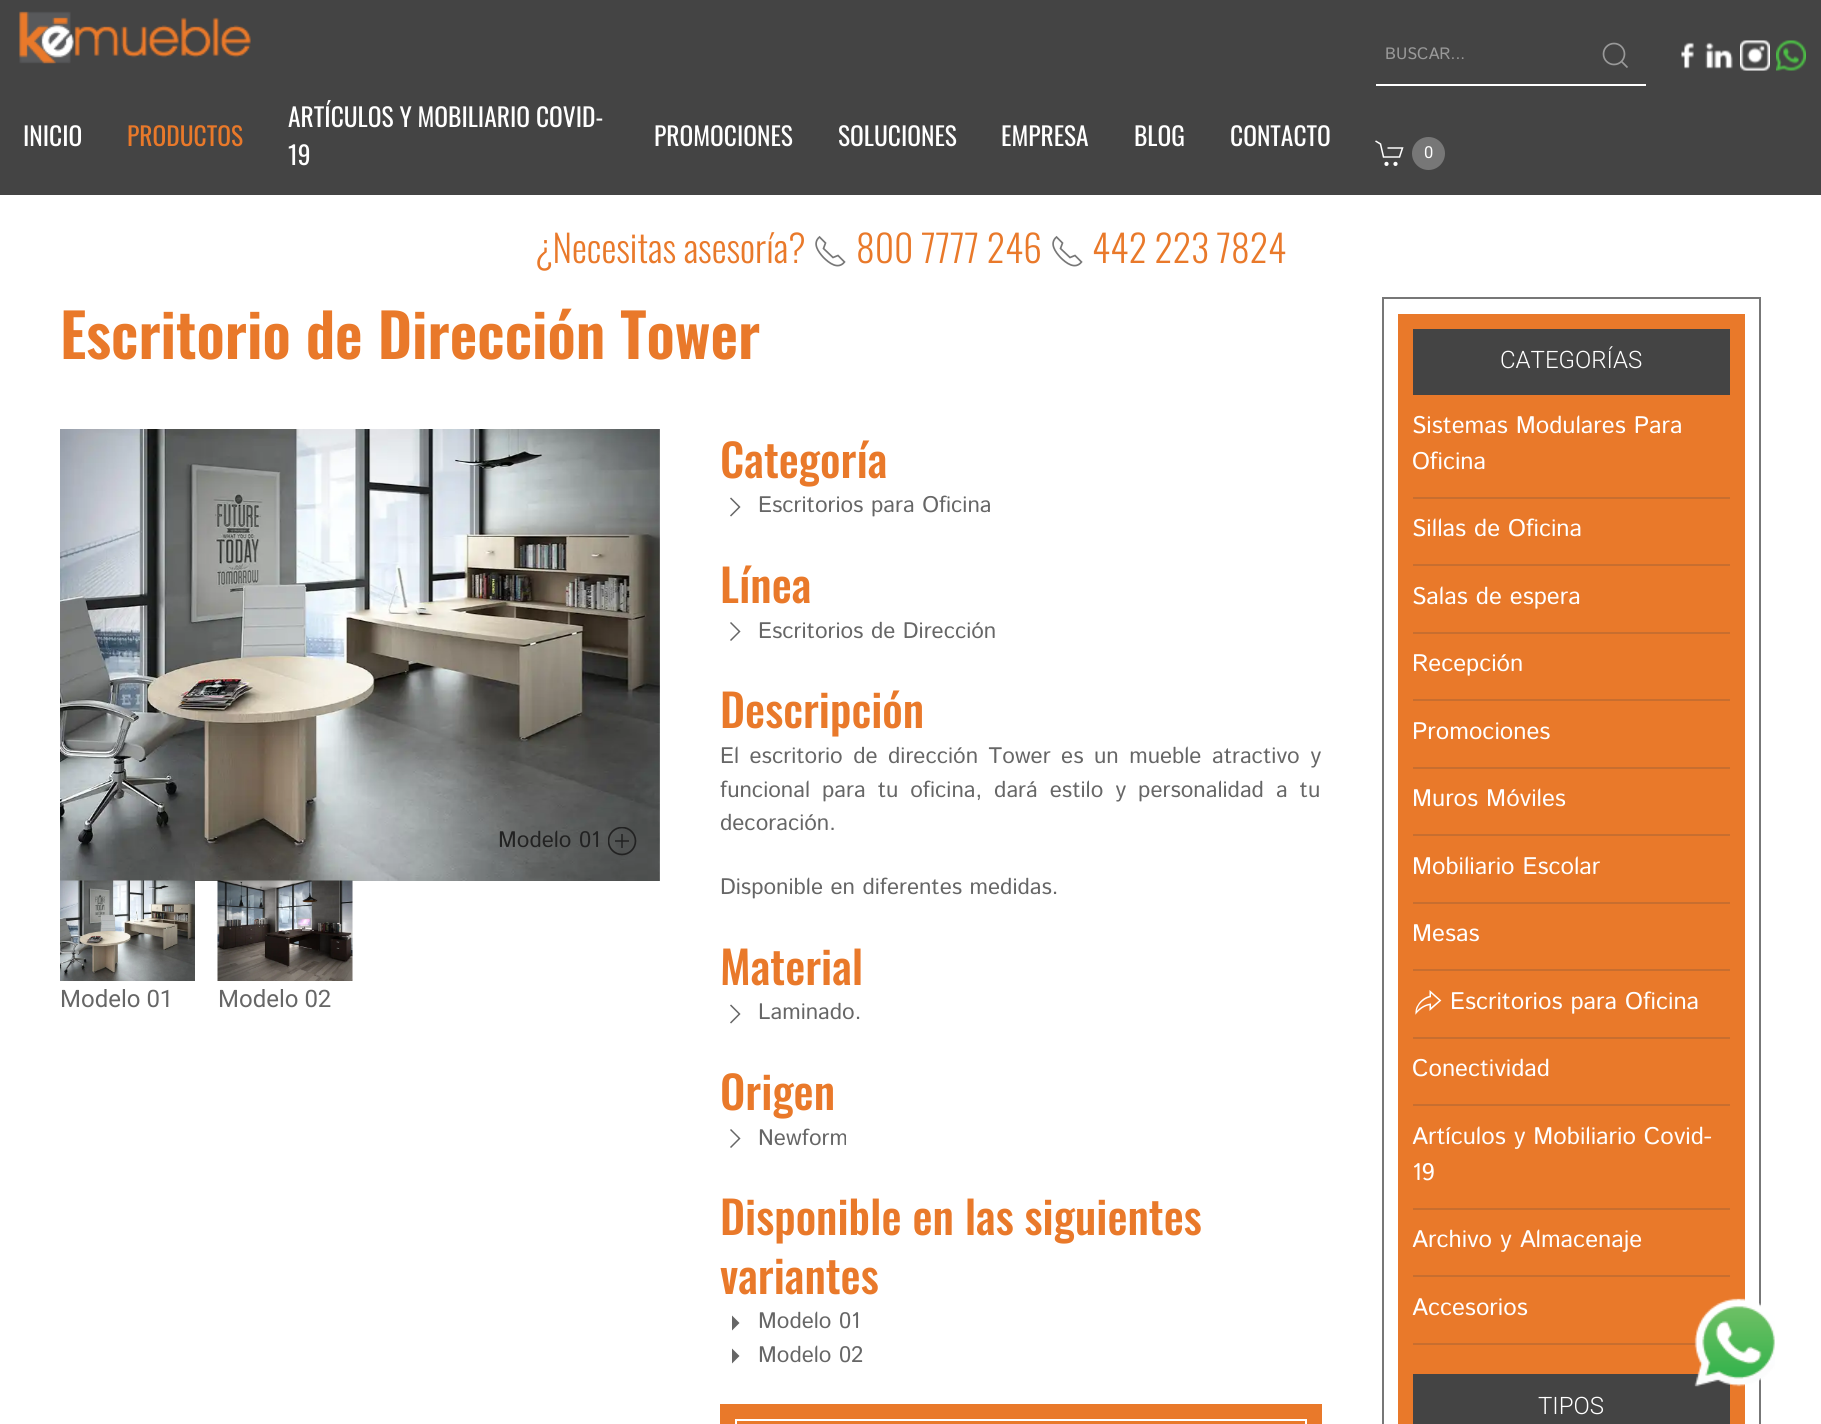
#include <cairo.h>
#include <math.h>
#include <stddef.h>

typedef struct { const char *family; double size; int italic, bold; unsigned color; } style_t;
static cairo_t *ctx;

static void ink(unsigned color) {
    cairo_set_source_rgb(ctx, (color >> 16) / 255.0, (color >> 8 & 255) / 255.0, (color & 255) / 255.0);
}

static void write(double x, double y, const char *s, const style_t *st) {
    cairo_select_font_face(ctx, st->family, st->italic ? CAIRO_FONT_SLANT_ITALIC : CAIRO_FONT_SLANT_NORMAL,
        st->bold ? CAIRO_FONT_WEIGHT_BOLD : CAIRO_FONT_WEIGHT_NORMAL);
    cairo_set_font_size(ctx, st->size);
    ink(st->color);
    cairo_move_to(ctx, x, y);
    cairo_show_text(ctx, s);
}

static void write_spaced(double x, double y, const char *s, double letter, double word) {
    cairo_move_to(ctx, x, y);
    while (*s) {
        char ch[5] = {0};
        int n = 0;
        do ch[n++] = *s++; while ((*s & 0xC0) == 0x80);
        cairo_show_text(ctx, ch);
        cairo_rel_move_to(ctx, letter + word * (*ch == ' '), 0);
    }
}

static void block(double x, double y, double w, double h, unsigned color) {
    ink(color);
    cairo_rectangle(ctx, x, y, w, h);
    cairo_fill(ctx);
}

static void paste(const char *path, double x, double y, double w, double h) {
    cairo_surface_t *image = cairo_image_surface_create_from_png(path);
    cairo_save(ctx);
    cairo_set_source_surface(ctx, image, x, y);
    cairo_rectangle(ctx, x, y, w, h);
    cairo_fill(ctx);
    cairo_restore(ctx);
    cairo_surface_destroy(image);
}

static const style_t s1 = {"Oswald", 25.5, 0, 0, 0xffffff};
static const style_t s2 = {"Oswald", 25.5, 0, 0, 0xe9792a};
static const style_t s3 = {"Istok Web", 16.5, 0, 0, 0x999999};
static const style_t s4 = {"Roboto", 16.5, 0, 0, 0xffffff};
static const style_t s5 = {"Oswald Light", 37.5, 0, 0, 0xe9792a};
static const style_t s6 = {"Oswald SemiBold", 60, 0, 0, 0xe9792a};
static const style_t s7 = {"Istok Web", 22.5, 0, 0, 0x222222};
static const style_t s8 = {"Roboto", 24, 0, 0, 0x666666};
static const style_t s9 = {"Oswald Medium", 45, 0, 0, 0xe9792a};
static const style_t s10 = {"Istok Web", 22.5, 0, 0, 0x666666};
static const style_t s11 = {"Roboto Light", 24, 0, 0, 0xffffff};
static const style_t s12 = {"Istok Web", 24, 0, 0, 0xffffff};

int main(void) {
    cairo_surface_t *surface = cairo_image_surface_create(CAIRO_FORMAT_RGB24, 1821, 1424);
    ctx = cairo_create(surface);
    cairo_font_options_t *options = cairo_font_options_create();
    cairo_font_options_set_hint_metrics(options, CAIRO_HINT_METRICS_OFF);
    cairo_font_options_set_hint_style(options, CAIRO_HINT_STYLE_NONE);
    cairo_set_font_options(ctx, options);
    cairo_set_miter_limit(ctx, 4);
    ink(0xffffff);
    cairo_paint(ctx);
    block(0, 0, 1821, 195, 0x444444);
    paste("pic1.png", 19, 11, 232, 53);
    write(23, 146, "INICIO", &s1);
    write(127, 146, "PRODUCTOS", &s2);
    write(288, 127, "ARTÍCULOS Y MOBILIARIO COVID-", &s1);
    write(288, 165, "19", &s1);
    write(654, 146, "PROMOCIONES", &s1);
    write(838, 146, "SOLUCIONES", &s1);
    write(1001, 146, "EMPRESA", &s1);
    write(1134, 146, "BLOG", &s1);
    write(1230, 146, "CONTACTO", &s1);
    block(1376, 84, 270, 2, 0xffffff);
    write(1385, 59, "BUSCAR...", &s3);
    cairo_new_path(ctx);
    cairo_arc(ctx, 1614, 54, 10.5, 0, 2 * M_PI);
    cairo_set_line_width(ctx, 1.7);
    cairo_stroke(ctx);
    cairo_new_path(ctx);
    cairo_move_to(ctx, 1621.5, 61.5);
    cairo_line_to(ctx, 1627.5, 67.5);
    cairo_close_path(ctx);
    cairo_stroke(ctx);
    paste("pic2.png", 1681, 42, 13, 27);
    paste("pic3.png", 1705, 42, 28, 27);
    paste("pic4.png", 1740, 40, 30, 31);
    paste("pic5.png", 1776, 40, 30, 31);
    cairo_new_path(ctx);
    cairo_move_to(ctx, 1375.5, 141);
    cairo_line_to(ctx, 1380.5, 144);
    cairo_line_to(ctx, 1383.5, 157);
    cairo_line_to(ctx, 1399.5, 157);
    cairo_line_to(ctx, 1402.5, 148);
    cairo_line_to(ctx, 1387.5, 148);
    ink(0xffffff);
    cairo_set_line_width(ctx, 1.5);
    cairo_stroke(ctx);
    cairo_arc(ctx, 1386.5, 163.9, 2.1, 0, 2 * M_PI);
    cairo_fill(ctx);
    cairo_arc(ctx, 1395.5, 163.9, 2.1, 0, 2 * M_PI);
    cairo_fill(ctx);
    ink(0x777777);
    cairo_arc(ctx, 1428.5, 153.5, 16.5, 0, 2 * M_PI);
    cairo_fill(ctx);
    write(1424, 158, "0", &s4);
    write(535, 263, "¿Necesitas asesoría?", &s5);
    cairo_new_path(ctx);
    cairo_move_to(ctx, 823.5, 257.5);
    cairo_curve_to(ctx, 829, 263, 838, 270, 844.5, 262);
    cairo_line_to(ctx, 838, 255.5);
    cairo_line_to(ctx, 833, 257.5);
    cairo_line_to(ctx, 823.5, 248.5);
    cairo_line_to(ctx, 825.5, 243);
    cairo_line_to(ctx, 819.5, 237);
    cairo_curve_to(ctx, 812, 243.5, 818.5, 252, 823.5, 257.5);
    ink(0x777777);
    cairo_set_line_width(ctx, 1.7);
    cairo_stroke(ctx);
    write(856, 263, "800 7777 246", &s5);
    cairo_new_path(ctx);
    cairo_move_to(ctx, 1060.5, 257.5);
    cairo_curve_to(ctx, 1066, 263, 1075, 270, 1081.5, 262);
    cairo_line_to(ctx, 1075, 255.5);
    cairo_line_to(ctx, 1070, 257.5);
    cairo_line_to(ctx, 1060.5, 248.5);
    cairo_line_to(ctx, 1062.5, 243);
    cairo_line_to(ctx, 1056.5, 237);
    cairo_curve_to(ctx, 1049, 243.5, 1055.5, 252, 1060.5, 257.5);
    ink(0x777777);
    cairo_stroke(ctx);
    write(1092, 263, "442 223 7824", &s5);
    write(60, 359, "Escritorio de Dirección Tower", &s6);
    paste("pic6.png", 60, 429, 600, 452);
    write(498, 847, "Modelo 01", &s7);
    cairo_save(ctx);
    cairo_rectangle(ctx, 608, 827, 30, 30);
    cairo_clip(ctx);
    cairo_arc(ctx, 622, 841, 13.5, 0, 2 * M_PI);
    cairo_stroke(ctx);
    cairo_restore(ctx);
    cairo_set_source_rgba(ctx, 0.133, 0.133, 0.133, 0.75);
    cairo_rectangle(ctx, 621, 834, 2, 14);
    cairo_fill(ctx);
    cairo_rectangle(ctx, 615, 840, 14, 2);
    cairo_fill(ctx);
    paste("pic7.png", 60, 880, 135, 101);
    write(60, 1007, "Modelo 01", &s8);
    paste("pic8.png", 217, 880, 136, 101);
    write(218, 1007, "Modelo 02", &s8);
    write(720, 478, "Categoría", &s9);
    cairo_new_path(ctx);
    cairo_move_to(ctx, 730.5, 498);
    cairo_line_to(ctx, 739.5, 507);
    cairo_line_to(ctx, 730.5, 516);
    ink(0x666666);
    cairo_set_line_width(ctx, 1.5);
    cairo_stroke(ctx);
    write(758, 512, "Escritorios para Oficina", &s10);
    write(720, 603, "Línea", &s9);
    cairo_new_path(ctx);
    cairo_move_to(ctx, 730.5, 622.5);
    cairo_line_to(ctx, 739.5, 631.5);
    cairo_line_to(ctx, 730.5, 640.5);
    ink(0x666666);
    cairo_stroke(ctx);
    write(758, 638, "Escritorios de Dirección", &s10);
    write(720, 728, "Descripción", &s9);
    cairo_select_font_face(ctx, "Istok Web", CAIRO_FONT_SLANT_NORMAL, CAIRO_FONT_WEIGHT_NORMAL);
    cairo_set_font_size(ctx, 22.5);
    ink(0x666666);
    write_spaced(720, 763, "El escritorio de dirección Tower es un mueble atractivo y", 0, 3);
    write_spaced(720, 797, "funcional para tu oficina, dará estilo y personalidad a tu", 0, 4.5);
    write(720, 830, "decoración.", &s10);
    write(720, 894, "Disponible en diferentes medidas.", &s10);
    write(720, 985, "Material", &s9);
    cairo_new_path(ctx);
    cairo_move_to(ctx, 730.5, 1005);
    cairo_line_to(ctx, 739.5, 1014);
    cairo_line_to(ctx, 730.5, 1023);
    ink(0x666666);
    cairo_stroke(ctx);
    write(758, 1019, "Laminado.", &s10);
    write(720, 1110, "Origen", &s9);
    cairo_new_path(ctx);
    cairo_move_to(ctx, 730.5, 1129.5);
    cairo_line_to(ctx, 739.5, 1138.5);
    cairo_line_to(ctx, 730.5, 1147.5);
    ink(0x666666);
    cairo_stroke(ctx);
    write(758, 1145, "Newform", &s10);
    write(720, 1235, "Disponible en las siguientes", &s9);
    write(720, 1294, "variantes", &s9);
    ink(0x666666);
    cairo_new_path(ctx);
    cairo_move_to(ctx, 732, 1315.5);
    cairo_line_to(ctx, 739.5, 1323);
    cairo_line_to(ctx, 732, 1330.5);
    cairo_close_path(ctx);
    cairo_move_to(ctx, 732, 1348.5);
    cairo_line_to(ctx, 739.5, 1356);
    cairo_line_to(ctx, 732, 1363.5);
    cairo_close_path(ctx);
    cairo_fill(ctx);
    write(758, 1328, "Modelo 01", &s10);
    write(758, 1362, "Modelo 02", &s10);
    block(720, 1404, 602, 20, 0xe9792a);
    cairo_rectangle(ctx, 736, 1420, 570, 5);
    ink(0xffffff);
    cairo_set_line_width(ctx, 2);
    cairo_stroke(ctx);
    cairo_rectangle(ctx, 1383, 298, 377, 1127);
    ink(0x777777);
    cairo_stroke(ctx);
    block(1398, 314, 347, 1110, 0xe9792a);
    block(1413, 329, 317, 66, 0x444444);
    write(1500, 368, "CATEGORÍAS", &s11);
    block(1413, 497, 317, 2, 0xc86e2f);
    write(1412, 433, "Sistemas Modulares Para", &s12);
    write(1412, 469, "Oficina", &s12);
    block(1413, 564, 317, 2, 0xc86e2f);
    write(1412, 536, "Sillas de Oficina", &s12);
    block(1413, 632, 317, 2, 0xc86e2f);
    write(1412, 604, "Salas de espera", &s12);
    block(1413, 699, 317, 2, 0xc86e2f);
    write(1412, 671, "Recepción", &s12);
    block(1413, 767, 317, 2, 0xc86e2f);
    write(1412, 739, "Promociones", &s12);
    block(1413, 834, 317, 2, 0xc86e2f);
    write(1412, 806, "Muros Móviles", &s12);
    block(1413, 902, 317, 2, 0xc86e2f);
    write(1412, 874, "Mobiliario Escolar", &s12);
    block(1413, 969, 317, 2, 0xc86e2f);
    write(1412, 941, "Mesas", &s12);
    block(1413, 1037, 317, 2, 0xc86e2f);
    paste("pic9.png", 1415, 990, 27, 25);
    write(1450, 1009, "Escritorios para Oficina", &s12);
    block(1413, 1104, 317, 2, 0xc86e2f);
    write(1412, 1076, "Conectividad", &s12);
    block(1413, 1208, 317, 2, 0xc86e2f);
    write(1412, 1144, "Artículos y Mobiliario Covid-", &s12);
    write(1412, 1180, "19", &s12);
    block(1413, 1275, 317, 2, 0xc86e2f);
    write(1412, 1247, "Archivo y Almacenaje", &s12);
    block(1413, 1343, 284, 2, 0xc86e2f);
    write(1412, 1315, "Accesorios", &s12);
    block(1413, 1374, 317, 50, 0x444444);
    write(1538, 1414, "TIPOS", &s11);
    paste("pic10.png", 1694, 1298, 81, 89);
    cairo_surface_write_to_png(surface, "screenshot.png");
    cairo_font_options_destroy(options);
    cairo_destroy(ctx);
    cairo_surface_destroy(surface);
    return 0;
}
